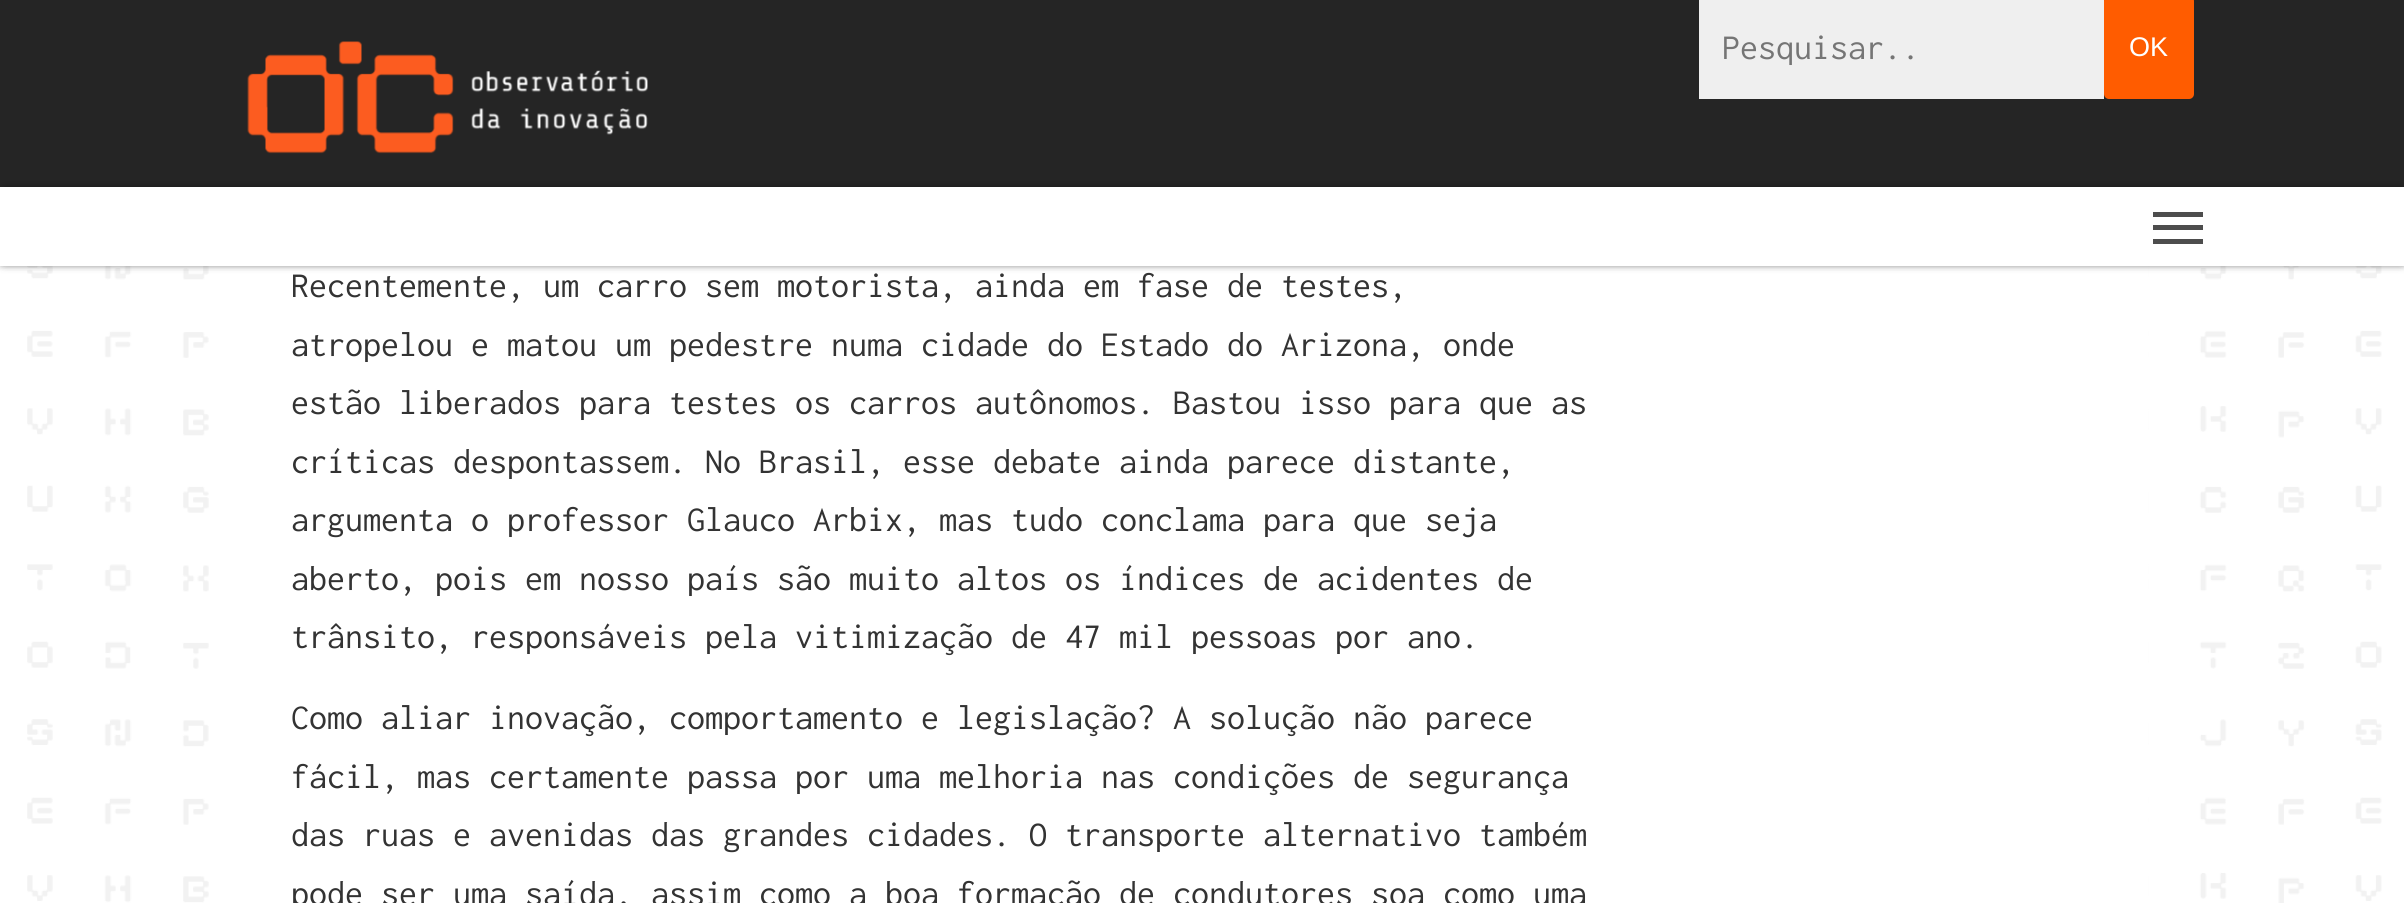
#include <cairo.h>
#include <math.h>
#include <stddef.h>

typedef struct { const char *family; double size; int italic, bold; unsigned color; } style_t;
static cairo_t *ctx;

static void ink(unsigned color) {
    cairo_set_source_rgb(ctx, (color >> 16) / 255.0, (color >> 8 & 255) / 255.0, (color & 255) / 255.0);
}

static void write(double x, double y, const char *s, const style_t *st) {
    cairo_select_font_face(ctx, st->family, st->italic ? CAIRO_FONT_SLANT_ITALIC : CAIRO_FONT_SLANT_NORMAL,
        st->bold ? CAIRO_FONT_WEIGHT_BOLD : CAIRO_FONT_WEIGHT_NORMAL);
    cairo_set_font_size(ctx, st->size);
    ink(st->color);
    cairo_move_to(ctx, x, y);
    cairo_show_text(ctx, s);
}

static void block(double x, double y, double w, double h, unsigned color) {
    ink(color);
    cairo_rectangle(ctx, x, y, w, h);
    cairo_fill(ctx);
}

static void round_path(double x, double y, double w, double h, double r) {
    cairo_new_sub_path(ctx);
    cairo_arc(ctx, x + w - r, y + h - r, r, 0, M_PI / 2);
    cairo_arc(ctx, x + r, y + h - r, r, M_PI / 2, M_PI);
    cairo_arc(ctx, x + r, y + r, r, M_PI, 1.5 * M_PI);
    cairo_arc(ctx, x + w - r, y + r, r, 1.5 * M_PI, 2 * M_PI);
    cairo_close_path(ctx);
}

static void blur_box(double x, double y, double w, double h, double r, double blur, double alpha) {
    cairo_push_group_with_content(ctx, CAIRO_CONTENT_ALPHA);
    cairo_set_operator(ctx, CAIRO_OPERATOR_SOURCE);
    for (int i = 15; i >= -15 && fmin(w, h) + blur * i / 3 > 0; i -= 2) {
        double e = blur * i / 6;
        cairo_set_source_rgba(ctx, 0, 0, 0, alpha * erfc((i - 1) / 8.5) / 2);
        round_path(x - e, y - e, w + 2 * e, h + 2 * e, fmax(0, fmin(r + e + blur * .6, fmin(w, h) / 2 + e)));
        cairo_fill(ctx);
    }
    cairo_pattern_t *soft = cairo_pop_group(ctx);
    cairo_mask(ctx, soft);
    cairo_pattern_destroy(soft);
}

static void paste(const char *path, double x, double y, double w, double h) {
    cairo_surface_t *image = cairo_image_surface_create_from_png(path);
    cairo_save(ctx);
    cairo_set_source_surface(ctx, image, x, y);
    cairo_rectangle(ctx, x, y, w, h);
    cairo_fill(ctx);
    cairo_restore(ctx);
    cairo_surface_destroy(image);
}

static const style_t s1 = {"Inconsolata", 36, 0, 0, 0x757575};
static const style_t s2 = {"Liberation Sans", 27, 0, 0, 0xffffff};
static const style_t s3 = {"Inconsolata", 36, 0, 0, 0x333333};

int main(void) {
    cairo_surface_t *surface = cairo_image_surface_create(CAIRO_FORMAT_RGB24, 2404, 903);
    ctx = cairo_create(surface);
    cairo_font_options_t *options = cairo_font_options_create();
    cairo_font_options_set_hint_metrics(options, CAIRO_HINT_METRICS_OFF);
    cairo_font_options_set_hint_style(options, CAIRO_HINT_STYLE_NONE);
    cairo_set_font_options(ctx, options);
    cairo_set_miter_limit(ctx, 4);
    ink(0xffffff);
    cairo_paint(ctx);
    paste("pic1.png", 27, 266, 2355, 637);
    block(259, 266, 1889, 637, 0xffffff);
    ink(0x000000);
    blur_box(0, 0, 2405, 266, 0, 3.5, 0.22);
    block(0, 0, 2404, 187, 0x252525);
    paste("pic2.png", 247, 41, 401, 113);
    block(1699, 0, 405, 99, 0xefefef);
    write(1722, 59, "Pesquisar..", &s1);
    ink(0xff5c00);
    round_path(2104, -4, 90, 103, 5);
    cairo_fill(ctx);
    write(2129, 56, "OK", &s2);
    ink(0x000000);
    blur_box(5, 191, 2396, 70, 0, 4.5, 1);
    block(0, 187, 2404, 79, 0xffffff);
    block(2153, 212, 50, 5, 0x4d4d4d);
    block(2153, 239, 50, 5, 0x4d4d4d);
    block(2153, 225, 50, 5, 0x4d4d4d);
    write(291, 297, "Recentemente, um carro sem motorista, ainda em fase de testes,", &s3);
    write(291, 356, "atropelou e matou um pedestre numa cidade do Estado do Arizona, onde", &s3);
    write(291, 414, "estão liberados para testes os carros autônomos. Bastou isso para que as", &s3);
    write(291, 473, "críticas despontassem. No Brasil, esse debate ainda parece distante,", &s3);
    write(291, 531, "argumenta o professor Glauco Arbix, mas tudo conclama para que seja", &s3);
    write(291, 590, "aberto, pois em nosso país são muito altos os índices de acidentes de", &s3);
    write(291, 648, "trânsito, responsáveis pela vitimização de 47 mil pessoas por ano.", &s3);
    write(291, 729, "Como aliar inovação, comportamento e legislação? A solução não parece", &s3);
    write(291, 788, "fácil, mas certamente passa por uma melhoria nas condições de segurança", &s3);
    write(291, 846, "das ruas e avenidas das grandes cidades. O transporte alternativo também", &s3);
    write(291, 905, "pode ser uma saída, assim como a boa formação de condutores soa como uma", &s3);
    cairo_surface_write_to_png(surface, "screenshot.png");
    cairo_font_options_destroy(options);
    cairo_destroy(ctx);
    cairo_surface_destroy(surface);
    return 0;
}
